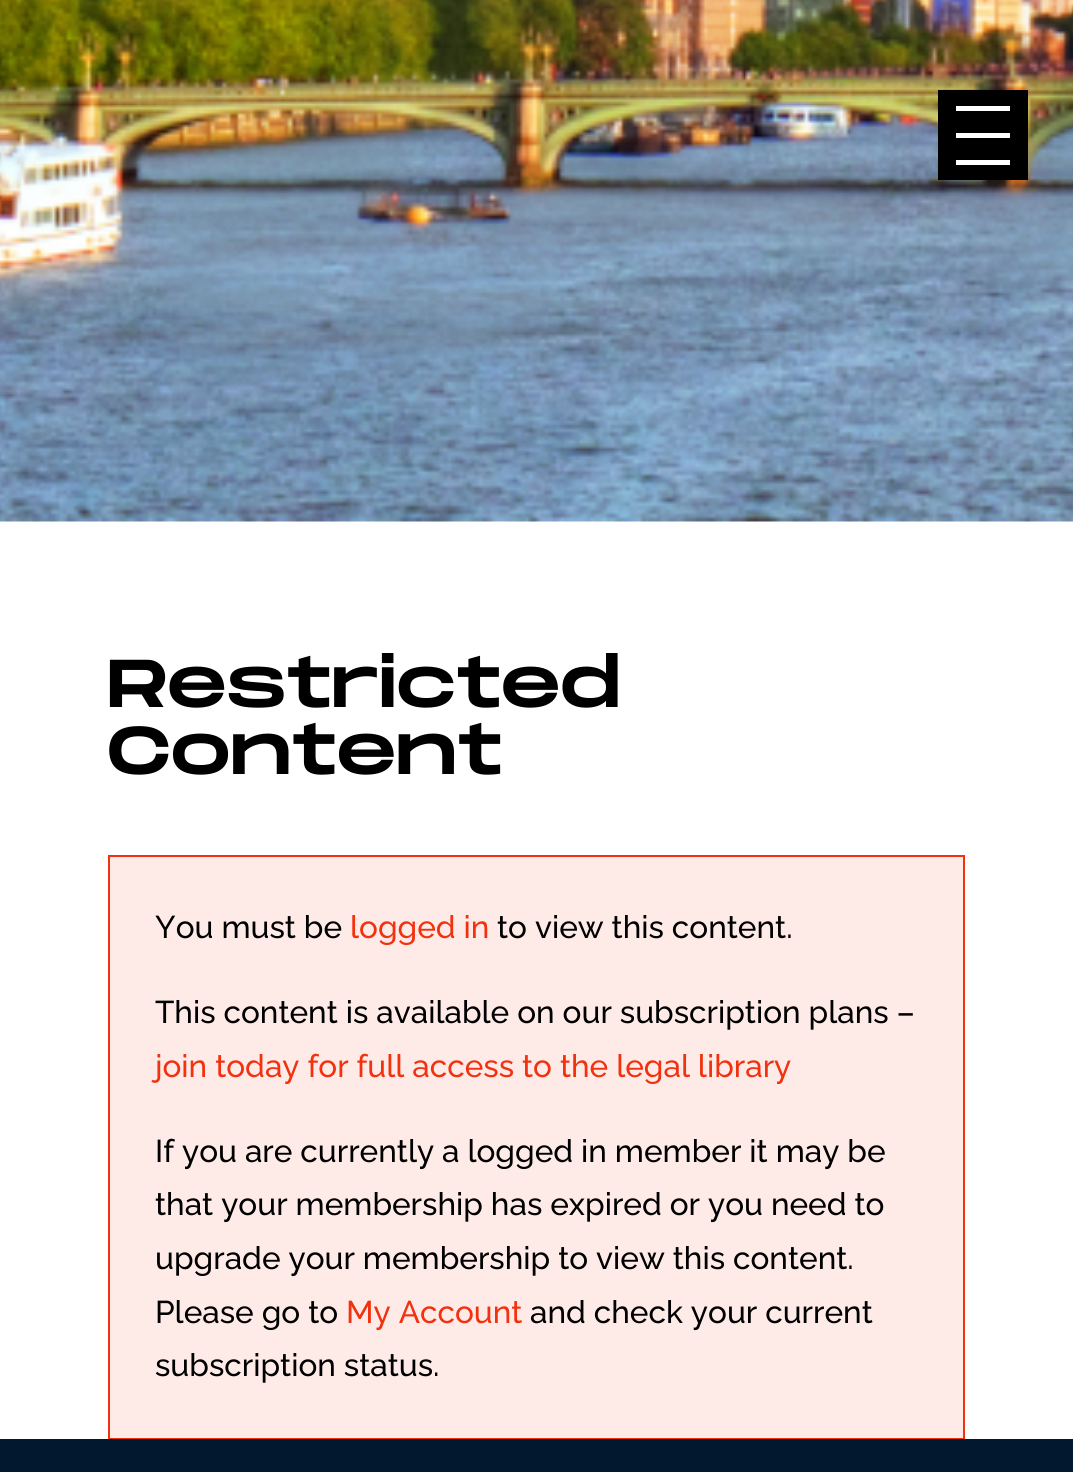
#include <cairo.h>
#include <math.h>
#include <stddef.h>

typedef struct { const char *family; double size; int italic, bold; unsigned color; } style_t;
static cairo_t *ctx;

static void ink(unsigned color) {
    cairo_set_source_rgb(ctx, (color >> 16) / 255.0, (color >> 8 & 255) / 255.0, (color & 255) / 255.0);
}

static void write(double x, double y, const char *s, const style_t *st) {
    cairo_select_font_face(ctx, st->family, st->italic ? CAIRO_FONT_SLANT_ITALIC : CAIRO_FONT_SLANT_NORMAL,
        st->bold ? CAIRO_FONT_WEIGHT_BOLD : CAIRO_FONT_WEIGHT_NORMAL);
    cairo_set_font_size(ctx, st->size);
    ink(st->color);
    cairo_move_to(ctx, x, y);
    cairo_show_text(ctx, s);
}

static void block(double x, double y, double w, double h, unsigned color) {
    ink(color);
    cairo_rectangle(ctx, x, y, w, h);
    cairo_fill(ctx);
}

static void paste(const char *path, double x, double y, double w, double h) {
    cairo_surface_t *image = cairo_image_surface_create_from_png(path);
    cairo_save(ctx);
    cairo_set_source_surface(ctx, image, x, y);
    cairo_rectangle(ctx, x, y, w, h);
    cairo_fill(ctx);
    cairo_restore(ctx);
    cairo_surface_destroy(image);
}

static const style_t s1 = {"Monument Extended", 67.5, 0, 0, 0x000000};
static const style_t s2 = {"Raleway Thin", 31.5, 0, 0, 0x000000};
static const style_t s3 = {"Raleway Thin", 31.5, 0, 0, 0xf2310e};

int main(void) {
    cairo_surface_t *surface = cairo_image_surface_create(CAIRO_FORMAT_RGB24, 1073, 1472);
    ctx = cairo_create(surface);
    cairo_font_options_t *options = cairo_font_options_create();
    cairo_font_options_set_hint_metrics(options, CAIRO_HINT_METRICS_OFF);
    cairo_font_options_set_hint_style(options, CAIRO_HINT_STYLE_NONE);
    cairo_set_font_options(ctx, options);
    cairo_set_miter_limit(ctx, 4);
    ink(0xffffff);
    cairo_paint(ctx);
    paste("pic1.png", 0, 0, 1073, 522);
    block(938, 90, 90, 90, 0x000000);
    block(956, 133, 54, 5, 0xffffff);
    block(956, 106, 54, 5, 0xffffff);
    block(956, 160, 54, 5, 0xffffff);
    write(107, 707, "Restricted", &s1);
    write(107, 774, "Content", &s1);
    ink(0xfeebe8);
    cairo_rectangle(ctx, 109, 856, 855, 583);
    cairo_fill_preserve(ctx);
    ink(0xf2310e);
    cairo_stroke(ctx);
    write(155, 938, "You must be", &s2);
    write(350, 938, "logged in", &s3);
    write(497, 938, "to view this content.", &s2);
    write(155, 1023, "This content is available on our subscription plans –", &s2);
    write(155, 1077, "join today for full access to the legal library", &s3);
    write(155, 1162, "If you are currently a logged in member it may be", &s2);
    write(155, 1215, "that your membership has expired or you need to", &s2);
    write(155, 1269, "upgrade your membership to view this content.", &s2);
    write(155, 1323, "Please go to", &s2);
    write(346, 1323, "My Account", &s3);
    write(530, 1323, "and check your current", &s2);
    write(155, 1376, "subscription status.", &s2);
    block(0, 1439, 1073, 33, 0x01182e);
    cairo_surface_write_to_png(surface, "screenshot.png");
    cairo_font_options_destroy(options);
    cairo_destroy(ctx);
    cairo_surface_destroy(surface);
    return 0;
}
